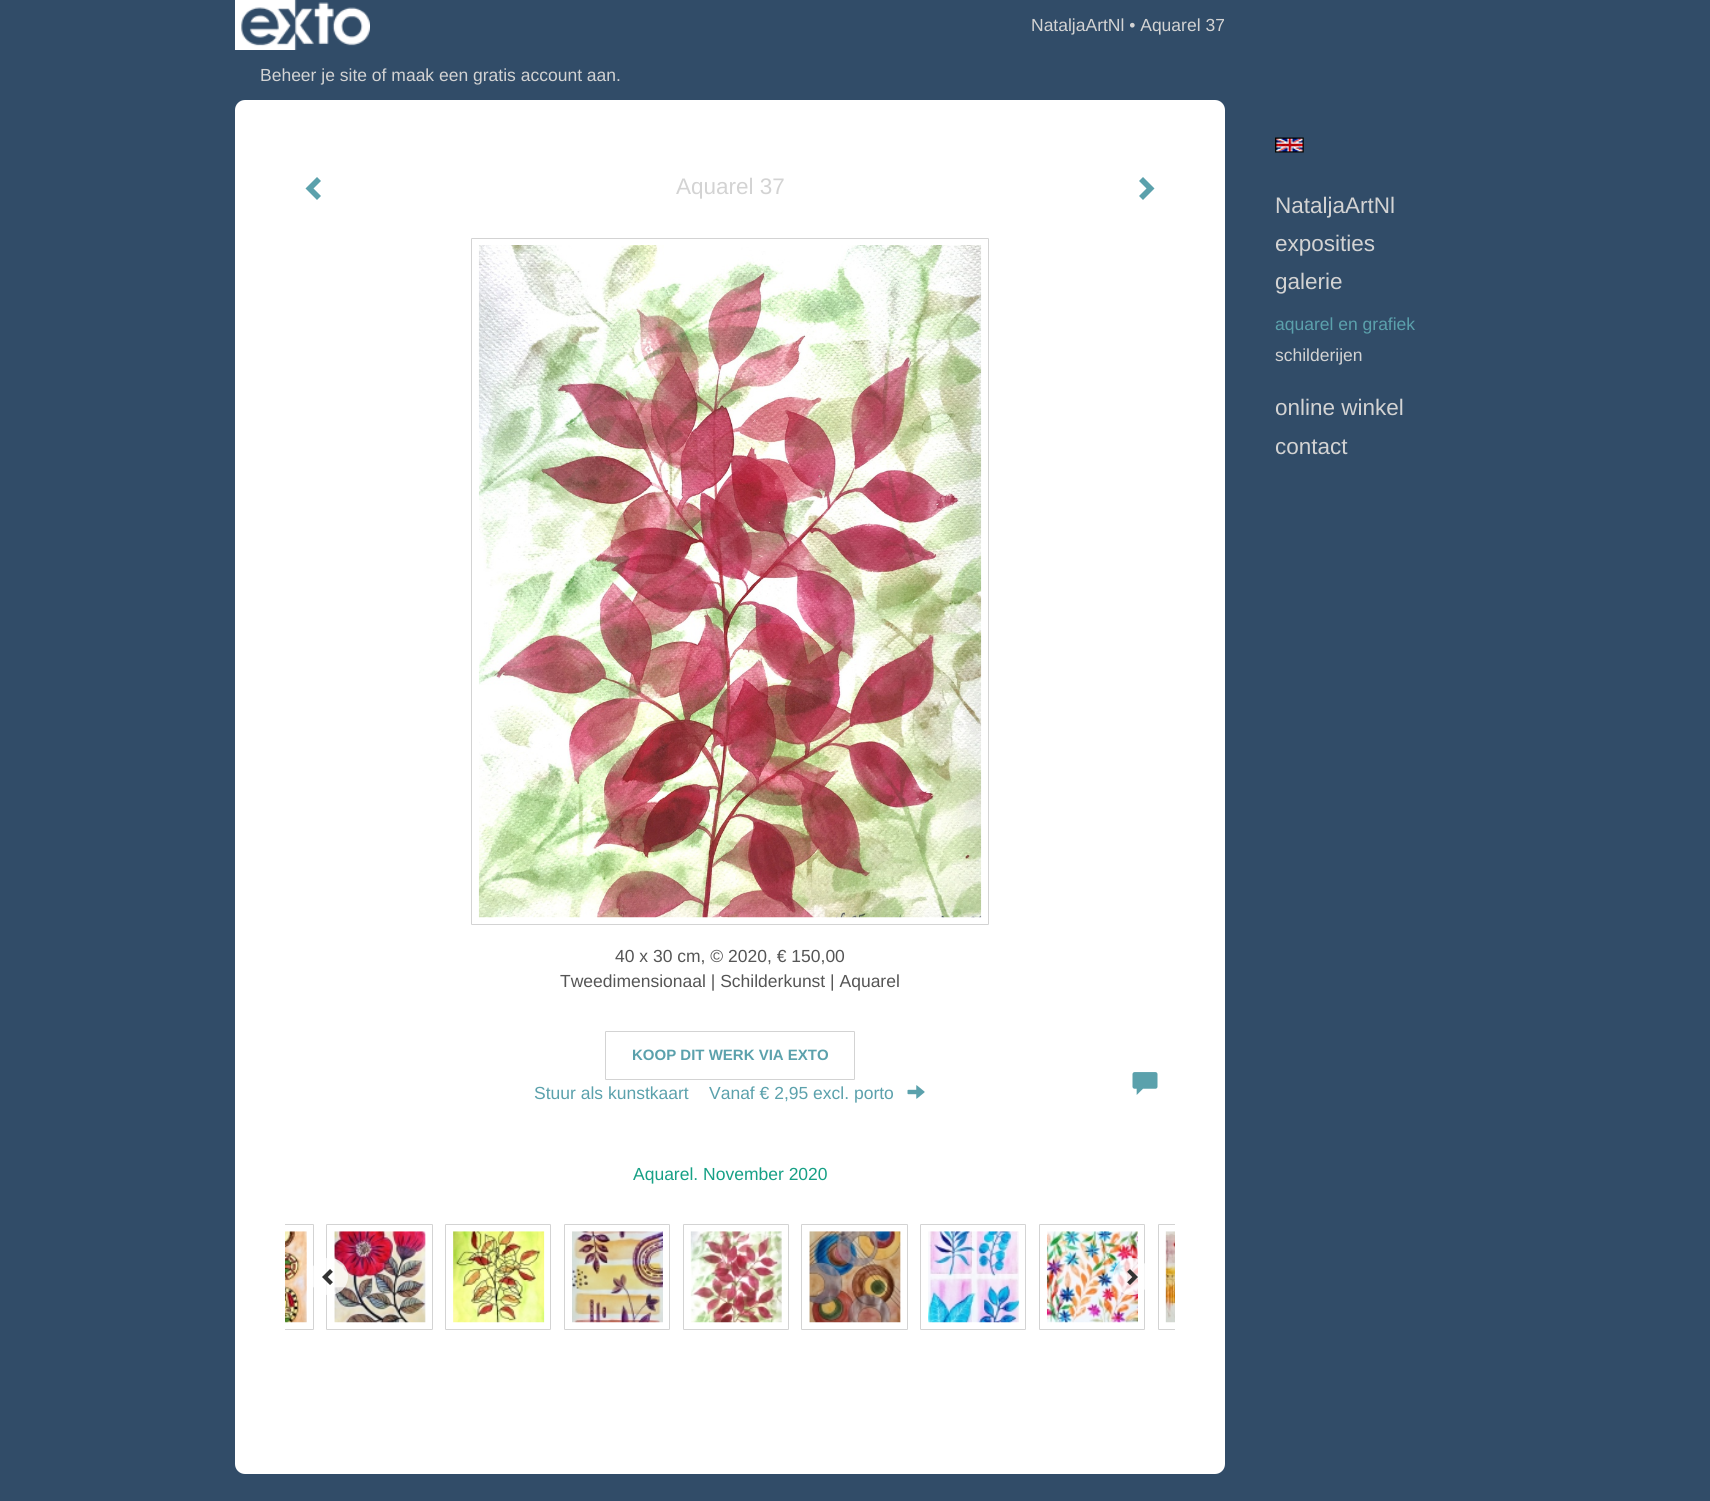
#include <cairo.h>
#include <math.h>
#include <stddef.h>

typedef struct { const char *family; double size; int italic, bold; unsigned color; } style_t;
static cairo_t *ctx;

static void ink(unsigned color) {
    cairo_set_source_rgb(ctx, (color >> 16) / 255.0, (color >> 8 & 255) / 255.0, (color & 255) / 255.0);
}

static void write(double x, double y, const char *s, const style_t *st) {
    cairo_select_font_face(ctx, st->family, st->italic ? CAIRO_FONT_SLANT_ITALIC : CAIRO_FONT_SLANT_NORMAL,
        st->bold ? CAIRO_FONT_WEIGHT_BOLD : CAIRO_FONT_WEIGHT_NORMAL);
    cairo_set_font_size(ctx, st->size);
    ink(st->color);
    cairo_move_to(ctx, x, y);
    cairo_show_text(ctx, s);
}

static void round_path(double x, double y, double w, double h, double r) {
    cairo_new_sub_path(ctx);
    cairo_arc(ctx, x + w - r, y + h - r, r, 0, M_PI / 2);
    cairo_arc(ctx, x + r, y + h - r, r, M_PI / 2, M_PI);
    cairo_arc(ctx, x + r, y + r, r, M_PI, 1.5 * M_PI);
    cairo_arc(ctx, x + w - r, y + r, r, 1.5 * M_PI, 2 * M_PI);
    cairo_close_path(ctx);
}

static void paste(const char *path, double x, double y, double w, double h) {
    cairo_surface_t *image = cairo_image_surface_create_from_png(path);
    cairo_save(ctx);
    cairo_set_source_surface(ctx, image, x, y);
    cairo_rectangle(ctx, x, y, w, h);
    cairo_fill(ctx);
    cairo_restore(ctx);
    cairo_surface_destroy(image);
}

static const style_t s1 = {"Liberation Sans", 17.5, 0, 0, 0xd3d3d3};
static const style_t s2 = {"Liberation Sans", 22.5, 0, 0, 0xd3d3d3};
static const style_t s3 = {"Liberation Sans", 17.5, 0, 0, 0x555555};
static const style_t s4 = {"Liberation Sans", 15, 0, 1, 0x5ba1ac};
static const style_t s5 = {"Liberation Sans", 17.5, 0, 0, 0x5ba1ac};
static const style_t s6 = {"Liberation Sans", 17.5, 0, 0, 0x16a085};

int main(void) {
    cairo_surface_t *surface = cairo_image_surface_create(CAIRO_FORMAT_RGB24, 1710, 1501);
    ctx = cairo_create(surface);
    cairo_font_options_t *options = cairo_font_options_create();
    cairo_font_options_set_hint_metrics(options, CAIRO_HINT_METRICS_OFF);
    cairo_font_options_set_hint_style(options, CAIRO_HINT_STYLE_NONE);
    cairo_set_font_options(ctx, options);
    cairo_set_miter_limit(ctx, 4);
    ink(0x314c68);
    cairo_paint(ctx);
    paste("pic1.png", 235, 0, 135, 50);
    write(1031, 31, "NataljaArtNl • Aquarel 37", &s1);
    write(260, 81, "Beheer je site of maak een gratis account aan.", &s1);
    ink(0xffffff);
    round_path(235, 100, 990, 1374, 10);
    cairo_fill(ctx);
    ink(0x5ba1ac);
    cairo_new_path(ctx);
    cairo_move_to(ctx, 321, 181);
    cairo_line_to(ctx, 313.5, 188.5);
    cairo_line_to(ctx, 321, 196);
    cairo_line_to(ctx, 317, 200);
    cairo_line_to(ctx, 305.5, 188.5);
    cairo_line_to(ctx, 317, 177);
    cairo_close_path(ctx);
    cairo_fill(ctx);
    write(676, 194, "Aquarel 37", &s2);
    ink(0x5ba1ac);
    cairo_new_path(ctx);
    cairo_move_to(ctx, 1154.5, 188.5);
    cairo_line_to(ctx, 1143, 200);
    cairo_line_to(ctx, 1139, 196);
    cairo_line_to(ctx, 1146.5, 188.5);
    cairo_line_to(ctx, 1139, 181);
    cairo_line_to(ctx, 1143, 177);
    cairo_close_path(ctx);
    cairo_fill(ctx);
    round_path(471.5, 238.5, 517, 686, 0.5);
    ink(0xd3d3d3);
    cairo_set_line_width(ctx, 1);
    cairo_stroke(ctx);
    paste("pic2.png", 478, 245, 504, 673);
    write(615, 962, "40 x 30 cm, © 2020, € 150,00", &s3);
    write(560, 987, "Tweedimensionaal | Schilderkunst | Aquarel", &s3);
    round_path(605.5, 1031.5, 249, 48, 0.5);
    ink(0xd3d3d3);
    cairo_stroke(ctx);
    write(632, 1060, "KOOP DIT WERK VIA EXTO", &s4);
    write(534, 1099, "Stuur als kunstkaart", &s5);
    write(709, 1099, "Vanaf € 2,95 excl. porto", &s5);
    paste("pic3.png", 907, 1085, 18, 14);
    paste("pic4.png", 1132, 1072, 26, 23);
    write(633, 1180, "Aquarel. November 2020", &s6);
    cairo_save(ctx);
    cairo_rectangle(ctx, 285, 1218, 890, 118);
    cairo_clip(ctx);
    round_path(208.5, 1224.5, 105, 105, 0.5);
    ink(0xd3d3d3);
    cairo_stroke(ctx);
    cairo_restore(ctx);
    paste("pic5.png", 285, 1231, 22, 92);
    round_path(326.5, 1224.5, 106, 105, 0.5);
    ink(0xd3d3d3);
    cairo_stroke(ctx);
    paste("pic6.png", 334, 1231, 92, 92);
    round_path(445.5, 1224.5, 105, 105, 0.5);
    cairo_stroke(ctx);
    paste("pic7.png", 453, 1231, 92, 92);
    round_path(564.5, 1224.5, 105, 105, 0.5);
    cairo_stroke(ctx);
    paste("pic8.png", 572, 1231, 91, 92);
    round_path(683.5, 1224.5, 105, 105, 0.5);
    cairo_stroke(ctx);
    paste("pic9.png", 690, 1231, 92, 92);
    round_path(801.5, 1224.5, 106, 105, 0.5);
    cairo_stroke(ctx);
    paste("pic10.png", 809, 1231, 92, 92);
    round_path(920.5, 1224.5, 105, 105, 0.5);
    cairo_stroke(ctx);
    paste("pic11.png", 928, 1231, 92, 92);
    round_path(1039.5, 1224.5, 105, 105, 0.5);
    cairo_stroke(ctx);
    paste("pic12.png", 1046, 1231, 92, 92);
    cairo_save(ctx);
    cairo_rectangle(ctx, 285, 1218, 890, 118);
    cairo_clip(ctx);
    round_path(1158.5, 1224.5, 105, 105, 0.5);
    cairo_stroke(ctx);
    cairo_restore(ctx);
    paste("pic13.png", 1165, 1231, 10, 92);
    cairo_set_source_rgba(ctx, 1, 1, 1, 0.75);
    round_path(310, 1258, 38, 37, 18.5);
    cairo_fill(ctx);
    paste("pic14.png", 322, 1269, 11, 16);
    cairo_arc(ctx, 1131.5, 1276.5, 18.5, 0, 2 * M_PI);
    cairo_fill(ctx);
    paste("pic15.png", 1127, 1269, 11, 16);
    paste("pic16.png", 1275, 137, 29, 16);
    write(1275, 213, "NataljaArtNl", &s2);
    write(1275, 251, "exposities", &s2);
    write(1275, 289, "galerie", &s2);
    write(1275, 330, "aquarel en grafiek", &s5);
    write(1275, 361, "schilderijen", &s1);
    write(1275, 415, "online winkel", &s2);
    write(1275, 454, "contact", &s2);
    cairo_surface_write_to_png(surface, "screenshot.png");
    cairo_font_options_destroy(options);
    cairo_destroy(ctx);
    cairo_surface_destroy(surface);
    return 0;
}
